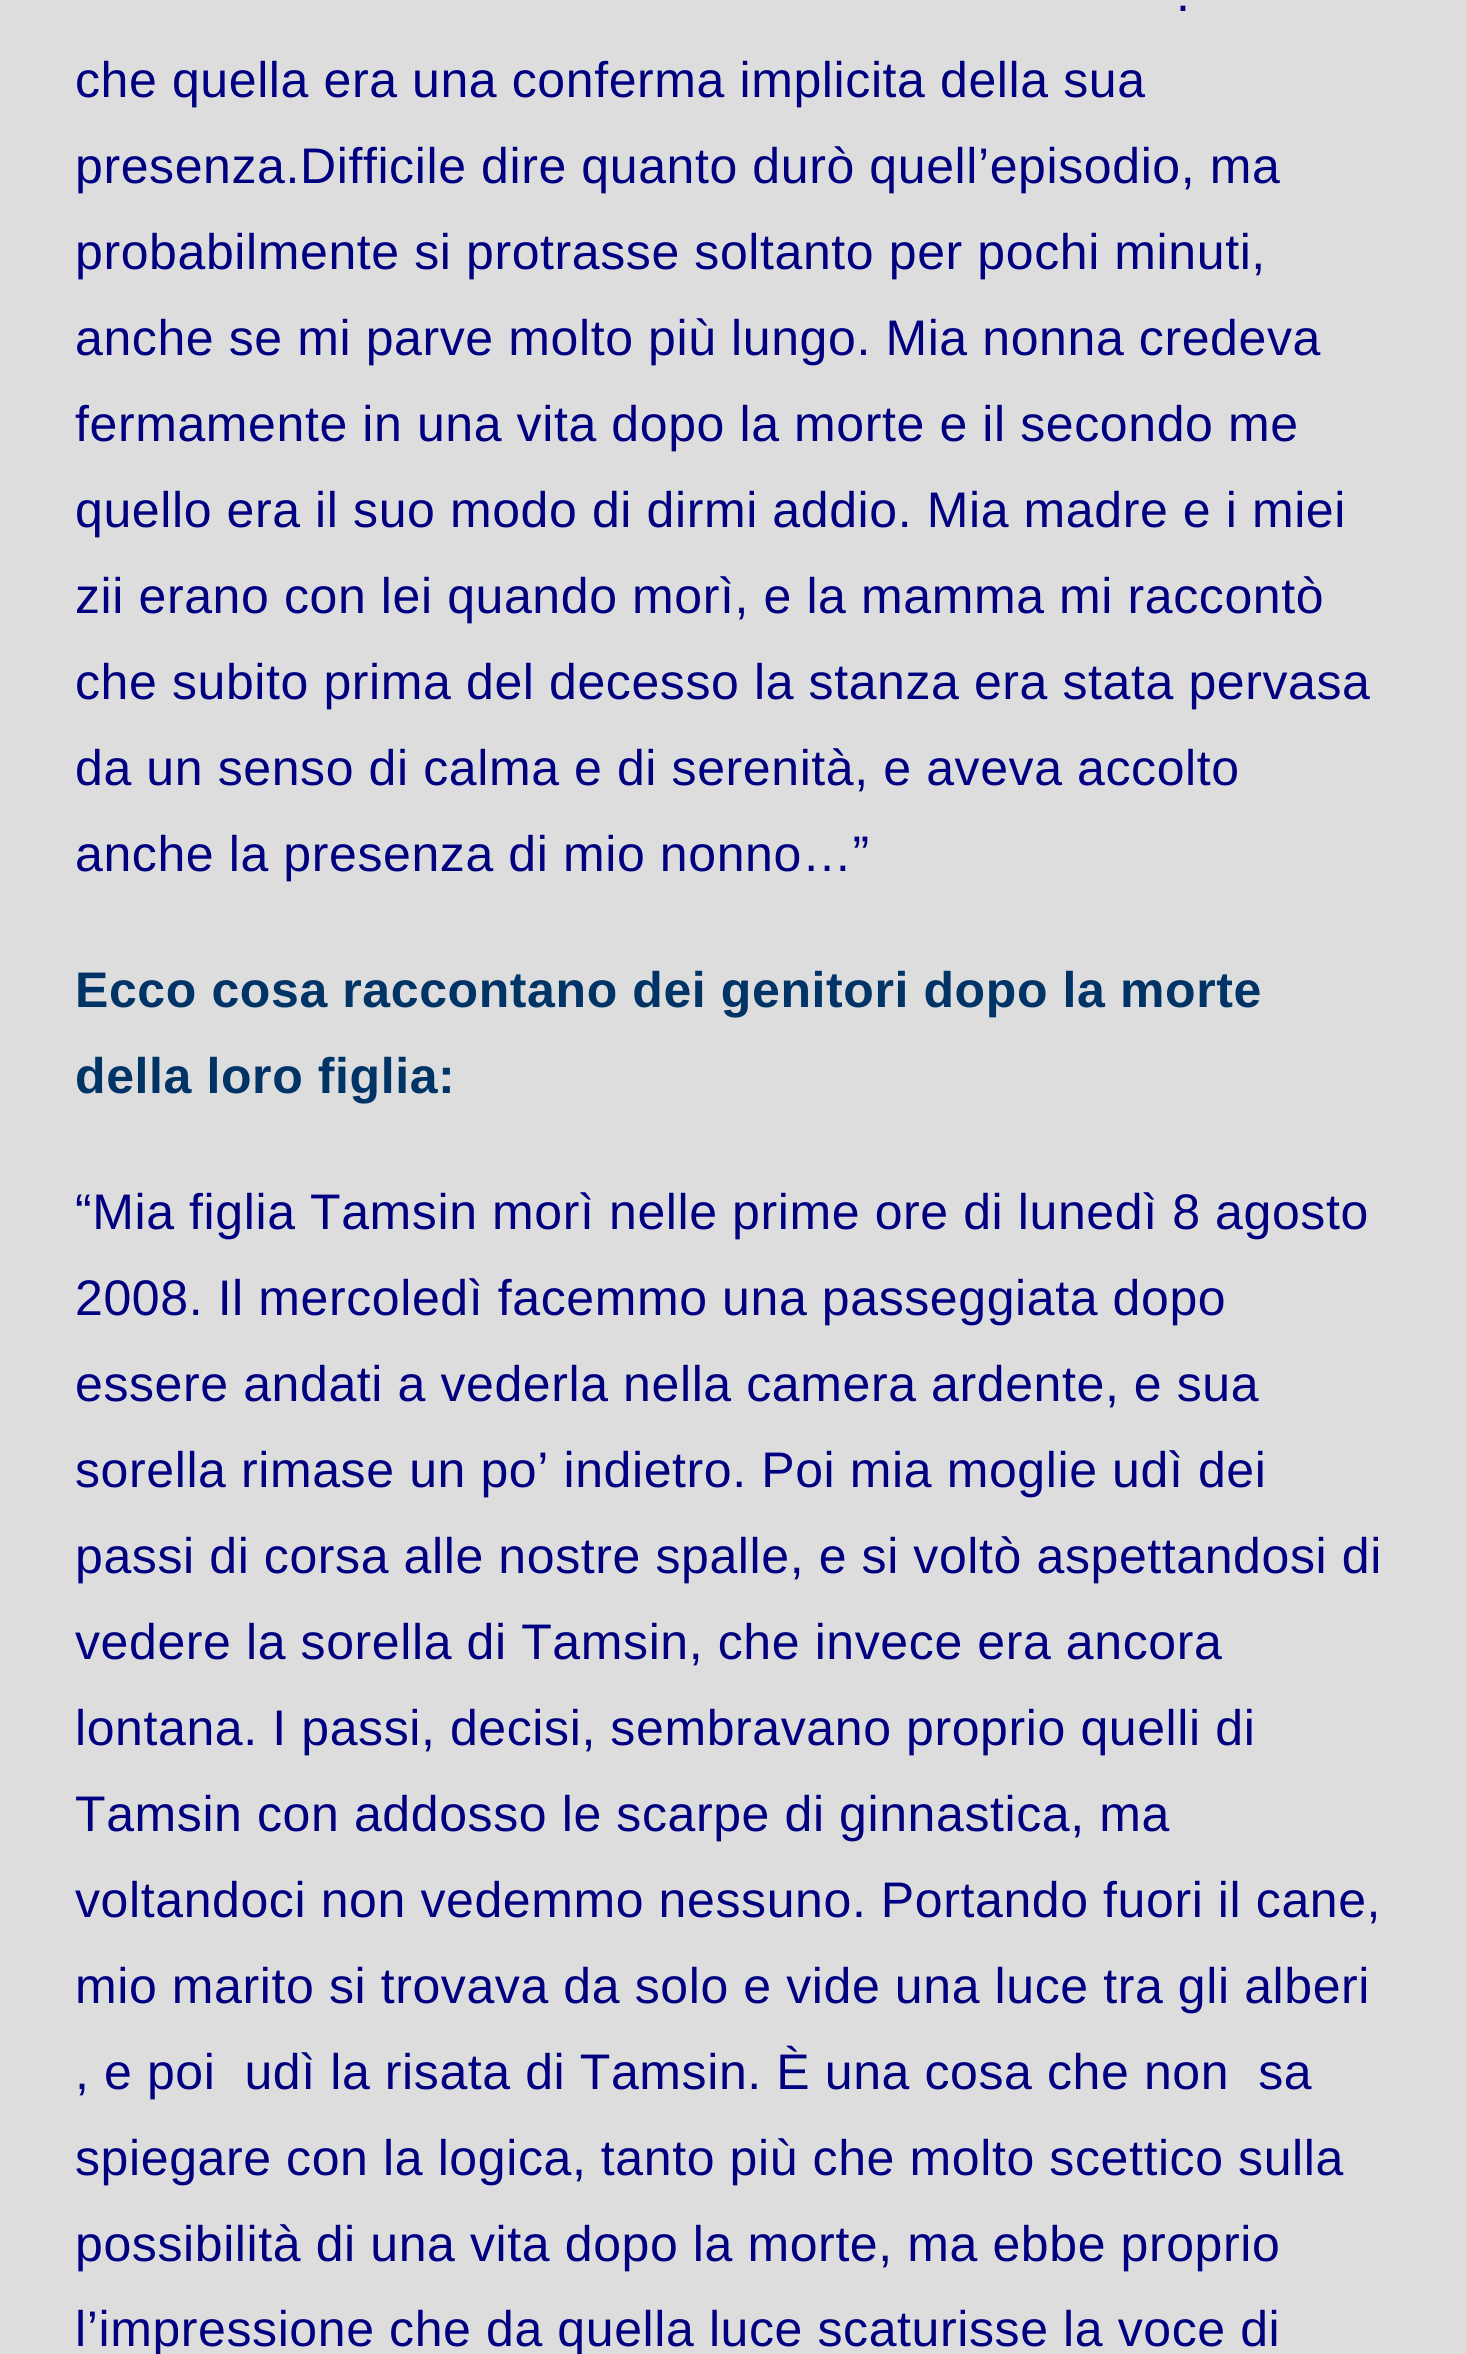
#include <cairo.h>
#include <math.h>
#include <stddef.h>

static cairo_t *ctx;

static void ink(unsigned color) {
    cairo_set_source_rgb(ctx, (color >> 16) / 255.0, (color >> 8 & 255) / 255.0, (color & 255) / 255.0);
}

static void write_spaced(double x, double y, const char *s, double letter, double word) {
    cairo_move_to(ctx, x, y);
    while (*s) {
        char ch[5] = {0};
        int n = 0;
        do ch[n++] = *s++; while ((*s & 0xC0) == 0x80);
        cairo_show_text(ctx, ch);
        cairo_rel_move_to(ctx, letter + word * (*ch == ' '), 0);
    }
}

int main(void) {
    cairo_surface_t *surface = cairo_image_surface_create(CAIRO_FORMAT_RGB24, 1466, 2354);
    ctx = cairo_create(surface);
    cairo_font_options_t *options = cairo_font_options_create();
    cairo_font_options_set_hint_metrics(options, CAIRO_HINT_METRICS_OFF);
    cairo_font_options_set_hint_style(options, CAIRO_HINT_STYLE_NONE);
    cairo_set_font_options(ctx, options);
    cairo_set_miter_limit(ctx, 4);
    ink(0xdddddd);
    cairo_paint(ctx);
    cairo_select_font_face(ctx, "Liberation Sans", CAIRO_FONT_SLANT_NORMAL, CAIRO_FONT_WEIGHT_NORMAL);
    cairo_set_font_size(ctx, 50);
    ink(0x000080);
    write_spaced(1176, 11, ".", 0.6, 0);
    write_spaced(75, 97, "che quella era una conferma implicita della sua", 0.6, 0);
    write_spaced(75, 183, "presenza.Difficile dire quanto durò quell’episodio, ma", 0.6, 0);
    write_spaced(75, 269, "probabilmente si protrasse soltanto per pochi minuti,", 0.6, 0);
    write_spaced(75, 355, "anche se mi parve molto più lungo. Mia nonna credeva", 0.6, 0);
    write_spaced(75, 441, "fermamente in una vita dopo la morte e il secondo me", 0.6, 0);
    write_spaced(75, 527, "quello era il suo modo di dirmi addio. Mia madre e i miei", 0.6, 0);
    write_spaced(75, 613, "zii erano con lei quando morì, e la mamma mi raccontò", 0.6, 0);
    write_spaced(75, 699, "che subito prima del decesso la stanza era stata pervasa", 0.6, 0);
    write_spaced(75, 785, "da un senso di calma e di serenità, e aveva accolto", 0.6, 0);
    write_spaced(75, 871, "anche la presenza di mio nonno…”", 0.6, 0);
    cairo_select_font_face(ctx, "Liberation Sans", CAIRO_FONT_SLANT_NORMAL, CAIRO_FONT_WEIGHT_BOLD);
    ink(0x003366);
    write_spaced(75, 1007, "Ecco cosa raccontano dei genitori dopo la morte", 0.6, 0);
    write_spaced(75, 1093, "della loro figlia:", 0.6, 0);
    cairo_select_font_face(ctx, "Liberation Sans", CAIRO_FONT_SLANT_NORMAL, CAIRO_FONT_WEIGHT_NORMAL);
    ink(0x000080);
    write_spaced(75, 1229, "“Mia figlia Tamsin morì nelle prime ore di lunedì 8 agosto", 0.6, 0);
    write_spaced(75, 1315, "2008. Il mercoledì facemmo una passeggiata dopo", 0.6, 0);
    write_spaced(75, 1401, "essere andati a vederla nella camera ardente, e sua", 0.6, 0);
    write_spaced(75, 1487, "sorella rimase un po’ indietro. Poi mia moglie udì dei", 0.6, 0);
    write_spaced(75, 1573, "passi di corsa alle nostre spalle, e si voltò aspettandosi di", 0.6, 0);
    write_spaced(75, 1659, "vedere la sorella di Tamsin, che invece era ancora", 0.6, 0);
    write_spaced(75, 1745, "lontana. I passi, decisi, sembravano proprio quelli di", 0.6, 0);
    write_spaced(75, 1831, "Tamsin con addosso le scarpe di ginnastica, ma", 0.6, 0);
    write_spaced(75, 1917, "voltandoci non vedemmo nessuno. Portando fuori il cane,", 0.6, 0);
    write_spaced(75, 2003, "mio marito si trovava da solo e vide una luce tra gli alberi", 0.6, 0);
    write_spaced(75, 2089, ", e poi  udì la risata di Tamsin. È una cosa che non  sa", 0.6, 0);
    write_spaced(75, 2175, "spiegare con la logica, tanto più che molto scettico sulla", 0.6, 0);
    write_spaced(75, 2261, "possibilità di una vita dopo la morte, ma ebbe proprio", 0.6, 0);
    write_spaced(75, 2346, "l’impressione che da quella luce scaturisse la voce di", 0.6, 0);
    cairo_surface_write_to_png(surface, "screenshot.png");
    cairo_font_options_destroy(options);
    cairo_destroy(ctx);
    cairo_surface_destroy(surface);
    return 0;
}
